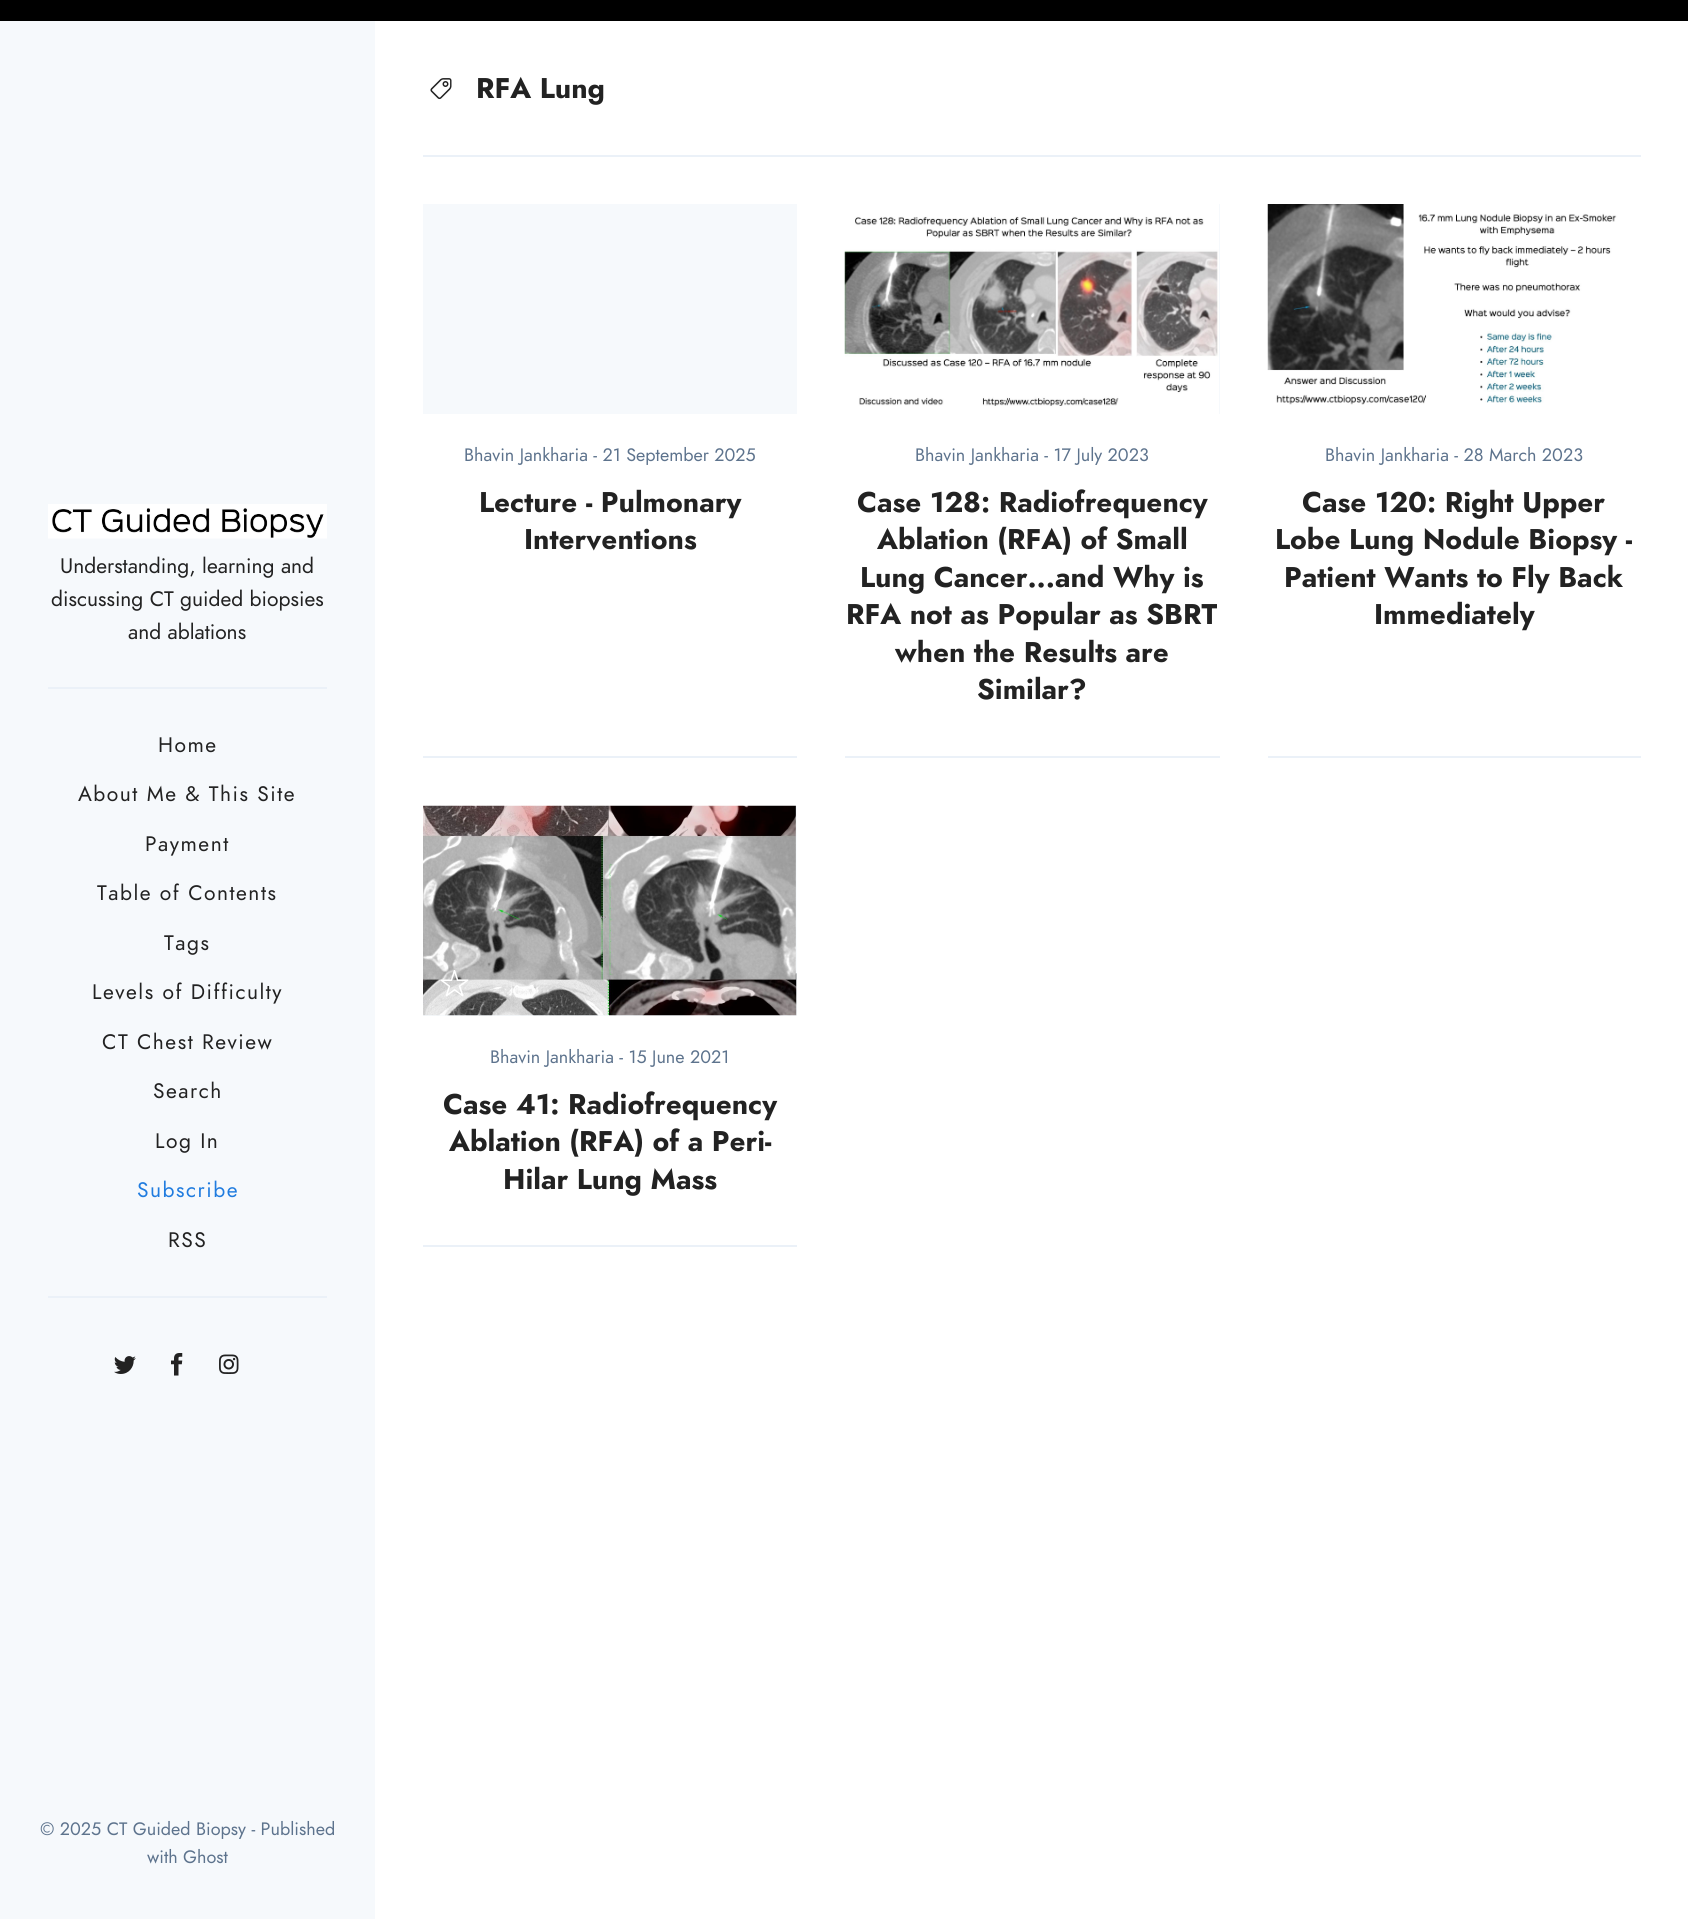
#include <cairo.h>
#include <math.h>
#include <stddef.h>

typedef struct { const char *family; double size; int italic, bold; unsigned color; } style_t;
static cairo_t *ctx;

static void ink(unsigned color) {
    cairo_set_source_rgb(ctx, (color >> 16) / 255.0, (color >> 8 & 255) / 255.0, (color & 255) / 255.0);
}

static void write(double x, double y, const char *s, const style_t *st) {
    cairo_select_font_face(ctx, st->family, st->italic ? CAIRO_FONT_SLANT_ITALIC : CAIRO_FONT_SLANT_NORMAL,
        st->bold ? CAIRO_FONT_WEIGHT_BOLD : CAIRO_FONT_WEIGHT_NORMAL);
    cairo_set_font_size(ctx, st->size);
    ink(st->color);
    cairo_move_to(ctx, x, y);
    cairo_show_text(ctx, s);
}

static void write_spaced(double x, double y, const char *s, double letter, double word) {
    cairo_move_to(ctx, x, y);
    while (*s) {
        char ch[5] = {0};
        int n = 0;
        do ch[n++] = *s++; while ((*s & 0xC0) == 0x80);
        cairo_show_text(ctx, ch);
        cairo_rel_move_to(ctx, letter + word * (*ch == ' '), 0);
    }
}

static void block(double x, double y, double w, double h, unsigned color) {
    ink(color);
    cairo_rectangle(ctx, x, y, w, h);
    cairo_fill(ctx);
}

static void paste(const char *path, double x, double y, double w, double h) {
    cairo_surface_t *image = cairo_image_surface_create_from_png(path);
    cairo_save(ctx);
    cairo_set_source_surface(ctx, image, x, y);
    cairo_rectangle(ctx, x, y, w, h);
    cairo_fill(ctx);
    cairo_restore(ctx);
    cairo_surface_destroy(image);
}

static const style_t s1 = {"Jost", 21, 0, 0, 0x222222};
static const style_t s2 = {"Jost", 18, 0, 0, 0x5d738d};
static const style_t s3 = {"Jost", 28.5, 0, 1, 0x222222};

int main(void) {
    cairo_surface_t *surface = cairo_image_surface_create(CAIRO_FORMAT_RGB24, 1688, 1919);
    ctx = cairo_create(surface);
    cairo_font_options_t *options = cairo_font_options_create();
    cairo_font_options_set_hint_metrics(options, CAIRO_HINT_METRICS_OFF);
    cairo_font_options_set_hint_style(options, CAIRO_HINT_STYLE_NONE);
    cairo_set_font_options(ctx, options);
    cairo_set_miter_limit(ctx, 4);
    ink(0xffffff);
    cairo_paint(ctx);
    block(0, 0, 1688, 21, 0x000000);
    block(0, 21, 375, 1898, 0xf6f9fc);
    paste("pic1.png", 48, 504, 279, 35);
    block(48, 687, 279, 2, 0xebf1f8);
    write(60, 573, "Understanding, learning and", &s1);
    write(51, 606, "discussing CT guided biopsies", &s1);
    write(128, 639, "and ablations", &s1);
    block(48, 1296, 279, 2, 0xebf1f8);
    ink(0x222222);
    write_spaced(158, 752, "Home", 1.5, 0);
    write_spaced(78, 801, "About Me & This Site", 1.5, 0);
    write_spaced(145, 851, "Payment", 1.5, 0);
    write_spaced(97, 900, "Table of Contents", 1.5, 0);
    write_spaced(164, 950, "Tags", 1.5, 0);
    write_spaced(92, 999, "Levels of Difficulty", 1.5, 0);
    write_spaced(102, 1049, "CT Chest Review", 1.5, 0);
    write_spaced(153, 1098, "Search", 1.5, 0);
    write_spaced(155, 1148, "Log In", 1.5, 0);
    ink(0x207cdf);
    write_spaced(137, 1197, "Subscribe", 1.5, 0);
    ink(0x222222);
    write_spaced(168, 1247, "RSS", 1.5, 0);
    paste("pic2.png", 114, 1356, 22, 18);
    paste("pic3.png", 171, 1353, 12, 23);
    paste("pic4.png", 219, 1354, 20, 20);
    write(40, 1835, "© 2025 CT Guided Biopsy - Published", &s2);
    write(147, 1863, "with Ghost", &s2);
    block(423, 155, 1218, 2, 0xebf1f8);
    paste("pic5.png", 430, 78, 22, 22);
    write(476, 98, "RFA Lung", &s3);
    block(423, 756, 374, 2, 0xebf1f8);
    block(423, 204, 374, 210, 0xf6f9fc);
    write(464, 461, "Bhavin Jankharia - 21 September 2025", &s2);
    write(479, 512, "Lecture - Pulmonary", &s3);
    write(524, 549, "Interventions", &s3);
    block(845, 756, 375, 2, 0xebf1f8);
    block(1219, 204, 1, 210, 0xf6f9fc);
    paste("pic6.png", 844, 204, 375, 210);
    write(915, 461, "Bhavin Jankharia - 17 July 2023", &s2);
    write(857, 512, "Case 128: Radiofrequency", &s3);
    write(877, 549, "Ablation (RFA) of Small", &s3);
    write(860, 587, "Lung Cancer...and Why is", &s3);
    write(846, 624, "RFA not as Popular as SBRT", &s3);
    write(895, 662, "when the Results are", &s3);
    write(977, 699, "Similar?", &s3);
    block(1268, 756, 373, 2, 0xebf1f8);
    paste("pic7.png", 1267, 204, 374, 210);
    write(1325, 461, "Bhavin Jankharia - 28 March 2023", &s2);
    write(1302, 512, "Case 120: Right Upper", &s3);
    write(1275, 549, "Lobe Lung Nodule Biopsy -", &s3);
    write(1284, 587, "Patient Wants to Fly Back", &s3);
    write(1374, 624, "Immediately", &s3);
    block(423, 1245, 374, 2, 0xebf1f8);
    block(423, 806, 374, 210, 0xf6f9fc);
    paste("pic8.png", 423, 805, 374, 211);
    paste("pic9.png", 440, 970, 29, 27);
    write(490, 1063, "Bhavin Jankharia - 15 June 2021", &s2);
    write(443, 1114, "Case 41: Radiofrequency", &s3);
    write(449, 1151, "Ablation (RFA) of a Peri-", &s3);
    write(503, 1189, "Hilar Lung Mass", &s3);
    cairo_surface_write_to_png(surface, "screenshot.png");
    cairo_font_options_destroy(options);
    cairo_destroy(ctx);
    cairo_surface_destroy(surface);
    return 0;
}
